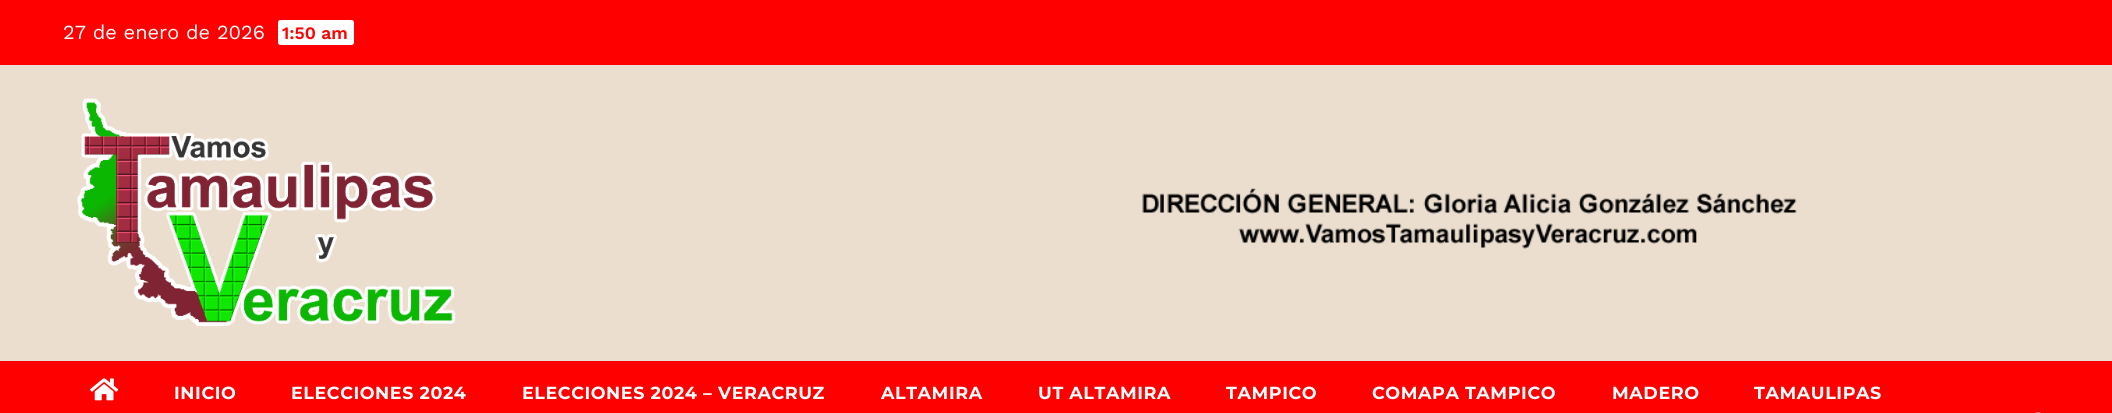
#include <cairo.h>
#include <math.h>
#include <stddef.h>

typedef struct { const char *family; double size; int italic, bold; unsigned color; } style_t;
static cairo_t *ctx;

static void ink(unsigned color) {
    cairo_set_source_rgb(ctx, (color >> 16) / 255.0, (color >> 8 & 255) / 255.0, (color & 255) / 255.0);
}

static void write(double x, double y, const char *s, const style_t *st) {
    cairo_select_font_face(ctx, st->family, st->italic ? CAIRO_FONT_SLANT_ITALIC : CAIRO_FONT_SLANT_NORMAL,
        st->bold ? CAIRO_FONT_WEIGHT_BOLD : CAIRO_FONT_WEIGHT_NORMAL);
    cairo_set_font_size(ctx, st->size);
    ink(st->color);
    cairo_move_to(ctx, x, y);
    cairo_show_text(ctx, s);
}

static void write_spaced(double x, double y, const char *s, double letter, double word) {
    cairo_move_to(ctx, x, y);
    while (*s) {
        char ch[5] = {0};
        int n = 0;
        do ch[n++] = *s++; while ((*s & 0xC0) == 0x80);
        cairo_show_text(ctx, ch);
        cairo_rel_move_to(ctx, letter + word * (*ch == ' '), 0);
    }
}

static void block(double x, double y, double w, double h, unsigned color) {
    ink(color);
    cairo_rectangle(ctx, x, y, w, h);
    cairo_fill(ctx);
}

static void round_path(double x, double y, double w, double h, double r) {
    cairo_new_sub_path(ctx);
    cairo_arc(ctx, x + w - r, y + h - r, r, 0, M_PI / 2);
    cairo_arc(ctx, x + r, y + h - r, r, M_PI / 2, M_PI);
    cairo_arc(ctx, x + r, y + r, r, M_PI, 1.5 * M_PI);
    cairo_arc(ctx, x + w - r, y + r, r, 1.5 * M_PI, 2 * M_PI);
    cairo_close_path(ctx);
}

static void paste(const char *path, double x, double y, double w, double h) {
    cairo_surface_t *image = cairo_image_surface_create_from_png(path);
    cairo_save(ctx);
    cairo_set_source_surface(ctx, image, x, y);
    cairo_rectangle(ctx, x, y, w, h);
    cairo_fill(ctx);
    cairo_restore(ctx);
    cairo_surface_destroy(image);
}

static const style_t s1 = {"Work Sans", 20, 0, 0, 0xffffff};
static const style_t s2 = {"Work Sans SemiBold", 17.5, 0, 0, 0xff0000};

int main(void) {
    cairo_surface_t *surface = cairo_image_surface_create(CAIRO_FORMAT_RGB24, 2112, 413);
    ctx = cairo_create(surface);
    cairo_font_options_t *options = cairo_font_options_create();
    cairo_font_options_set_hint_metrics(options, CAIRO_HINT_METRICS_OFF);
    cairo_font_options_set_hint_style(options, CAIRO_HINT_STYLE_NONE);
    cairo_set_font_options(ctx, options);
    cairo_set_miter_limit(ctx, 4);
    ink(0xff0000);
    cairo_paint(ctx);
    write(63, 39, "27 de enero de 2026", &s1);
    round_path(278, 20, 76, 25, 2.5);
    cairo_fill(ctx);
    write(282, 39, "1:50 am", &s2);
    block(0, 65, 2112, 296, 0xebdecf);
    paste("pic1.png", 77, 98, 379, 228);
    paste("pic2.png", 1142, 188, 655, 61);
    paste("pic3.png", 90, 378, 29, 23);
    cairo_select_font_face(ctx, "Montserrat", CAIRO_FONT_SLANT_NORMAL, CAIRO_FONT_WEIGHT_BOLD);
    ink(0xffffff);
    write_spaced(174, 399, "INICIO", 0.6, 0);
    write_spaced(291, 399, "ELECCIONES 2024", 0.6, 0);
    write_spaced(522, 399, "ELECCIONES 2024 – VERACRUZ", 0.6, 0);
    write_spaced(881, 399, "ALTAMIRA", 0.6, 0);
    write_spaced(1038, 399, "UT ALTAMIRA", 0.6, 0);
    write_spaced(1226, 399, "TAMPICO", 0.6, 0);
    write_spaced(1372, 399, "COMAPA TAMPICO", 0.6, 0);
    write_spaced(1612, 399, "MADERO", 0.6, 0);
    write_spaced(1754, 399, "TAMAULIPAS", 0.6, 0);
    paste("pic4.png", 2035, 412, 6, 1);
    cairo_surface_write_to_png(surface, "screenshot.png");
    cairo_font_options_destroy(options);
    cairo_destroy(ctx);
    cairo_surface_destroy(surface);
    return 0;
}
